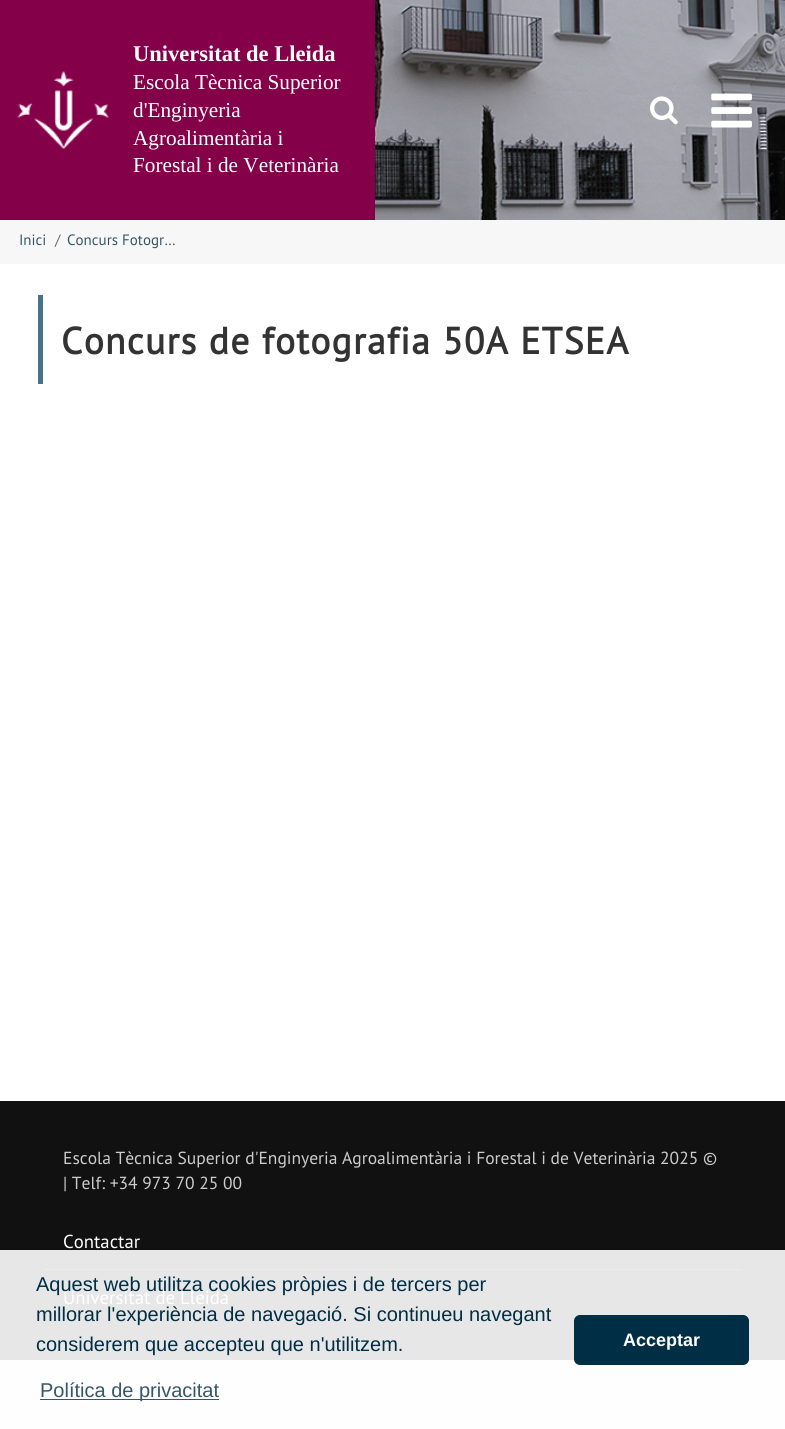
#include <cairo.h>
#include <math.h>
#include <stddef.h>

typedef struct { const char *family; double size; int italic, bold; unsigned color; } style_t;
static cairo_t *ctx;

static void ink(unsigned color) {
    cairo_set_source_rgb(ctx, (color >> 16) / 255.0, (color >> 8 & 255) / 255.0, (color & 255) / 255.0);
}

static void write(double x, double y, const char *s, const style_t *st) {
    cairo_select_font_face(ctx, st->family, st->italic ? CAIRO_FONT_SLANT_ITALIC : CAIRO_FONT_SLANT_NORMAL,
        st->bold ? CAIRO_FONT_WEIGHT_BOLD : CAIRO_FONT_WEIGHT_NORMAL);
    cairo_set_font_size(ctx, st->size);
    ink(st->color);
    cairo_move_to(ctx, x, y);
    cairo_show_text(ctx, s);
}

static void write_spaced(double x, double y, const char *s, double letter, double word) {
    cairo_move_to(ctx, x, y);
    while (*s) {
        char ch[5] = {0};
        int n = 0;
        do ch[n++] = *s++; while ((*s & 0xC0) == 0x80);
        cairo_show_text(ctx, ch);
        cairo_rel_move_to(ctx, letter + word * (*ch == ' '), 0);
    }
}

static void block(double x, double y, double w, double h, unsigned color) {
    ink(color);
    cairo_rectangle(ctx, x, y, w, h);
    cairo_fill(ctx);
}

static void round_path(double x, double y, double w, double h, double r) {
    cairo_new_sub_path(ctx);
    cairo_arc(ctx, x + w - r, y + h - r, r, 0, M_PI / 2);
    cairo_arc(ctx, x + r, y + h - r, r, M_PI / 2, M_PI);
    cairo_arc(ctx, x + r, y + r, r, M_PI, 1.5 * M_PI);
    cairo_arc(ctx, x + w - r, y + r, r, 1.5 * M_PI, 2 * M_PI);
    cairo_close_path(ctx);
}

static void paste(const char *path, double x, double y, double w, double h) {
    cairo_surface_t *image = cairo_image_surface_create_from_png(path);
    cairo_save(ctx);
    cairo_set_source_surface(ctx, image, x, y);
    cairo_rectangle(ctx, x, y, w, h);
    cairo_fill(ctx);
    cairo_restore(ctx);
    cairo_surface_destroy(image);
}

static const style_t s1 = {"Liberation Serif", 22.5, 0, 1, 0xffffff};
static const style_t s2 = {"Liberation Serif", 21.25, 0, 0, 0xffffff};
static const style_t s3 = {"PT Sans", 15, 0, 0, 0x355767};
static const style_t s4 = {"PT Sans", 15, 0, 0, 0x6b6b6b};
static const style_t s5 = {"PT Sans", 17.5, 0, 0, 0xcccccc};
static const style_t s6 = {"PT Sans", 18.75, 0, 0, 0xffffff};
static const style_t s7 = {"Liberation Sans", 20, 0, 0, 0x002e45};
static const style_t s8 = {"Liberation Sans", 20, 0, 0, 0x355767};
static const style_t s9 = {"Liberation Sans", 18, 0, 1, 0xffffff};

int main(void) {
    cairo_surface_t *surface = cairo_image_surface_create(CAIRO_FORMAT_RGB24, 785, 1429);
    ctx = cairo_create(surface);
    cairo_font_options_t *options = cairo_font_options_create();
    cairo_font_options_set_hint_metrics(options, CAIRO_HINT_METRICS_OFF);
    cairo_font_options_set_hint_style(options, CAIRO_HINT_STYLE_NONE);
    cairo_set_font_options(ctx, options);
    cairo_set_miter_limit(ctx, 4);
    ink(0xf7f7f7);
    cairo_paint(ctx);
    block(0, 1360, 785, 69, 0xfefefe);
    paste("pic1.png", 375, 0, 410, 220);
    block(0, 0, 375, 220, 0x840048);
    paste("pic2.png", 17, 71, 92, 78);
    write(133, 61, "Universitat de Lleida", &s1);
    write(133, 89, "Escola Tècnica Superior", &s2);
    write(133, 117, "d'Enginyeria", &s2);
    write(133, 145, "Agroalimentària i", &s2);
    write(133, 172, "Forestal i de Veterinària", &s2);
    paste("pic3.png", 650, 96, 28, 29);
    paste("pic4.png", 711, 93, 41, 35);
    write(19, 245, "Inici", &s3);
    write(55, 245, "/", &s4);
    write(67, 245, "Concurs Fotogr…", &s3);
    block(0, 264, 785, 837, 0xffffff);
    block(38, 295, 5, 89, 0x467389);
    cairo_select_font_face(ctx, "PT Sans", CAIRO_FONT_SLANT_NORMAL, CAIRO_FONT_WEIGHT_BOLD);
    cairo_set_font_size(ctx, 37.5);
    ink(0x333333);
    write_spaced(61, 354, "Concurs de fotografia 50A ETSEA", 1.25, 0);
    block(0, 1101, 785, 149, 0x111111);
    block(0, 1250, 785, 110, 0xe7e7e7);
    write(63, 1164, "Escola Tècnica Superior d'Enginyeria Agroalimentària i Forestal i de Veterinària 2025 ©", &s5);
    write(63, 1189, "| Telf: +34 973 70 25 00", &s5);
    write(63, 1248, "Contactar", &s6);
    block(44, 1269, 697, 1, 0xececec);
    write(63, 1304, "Universitat de Lleida", &s6);
    write(36, 1291, "Aquest web utilitza cookies pròpies i de tercers per", &s7);
    write(36, 1321, "millorar l'experiència de navegació. Si continueu navegant", &s7);
    write(36, 1351, "considerem que accepteu que n'utilitzem.", &s7);
    block(40, 1399, 179, 1, 0x33586a);
    write(40, 1397, "Política de privacitat", &s8);
    ink(0x002e45);
    round_path(574, 1315, 175, 50, 6);
    cairo_fill(ctx);
    write(623, 1346, "Acceptar", &s9);
    cairo_surface_write_to_png(surface, "screenshot.png");
    cairo_font_options_destroy(options);
    cairo_destroy(ctx);
    cairo_surface_destroy(surface);
    return 0;
}
